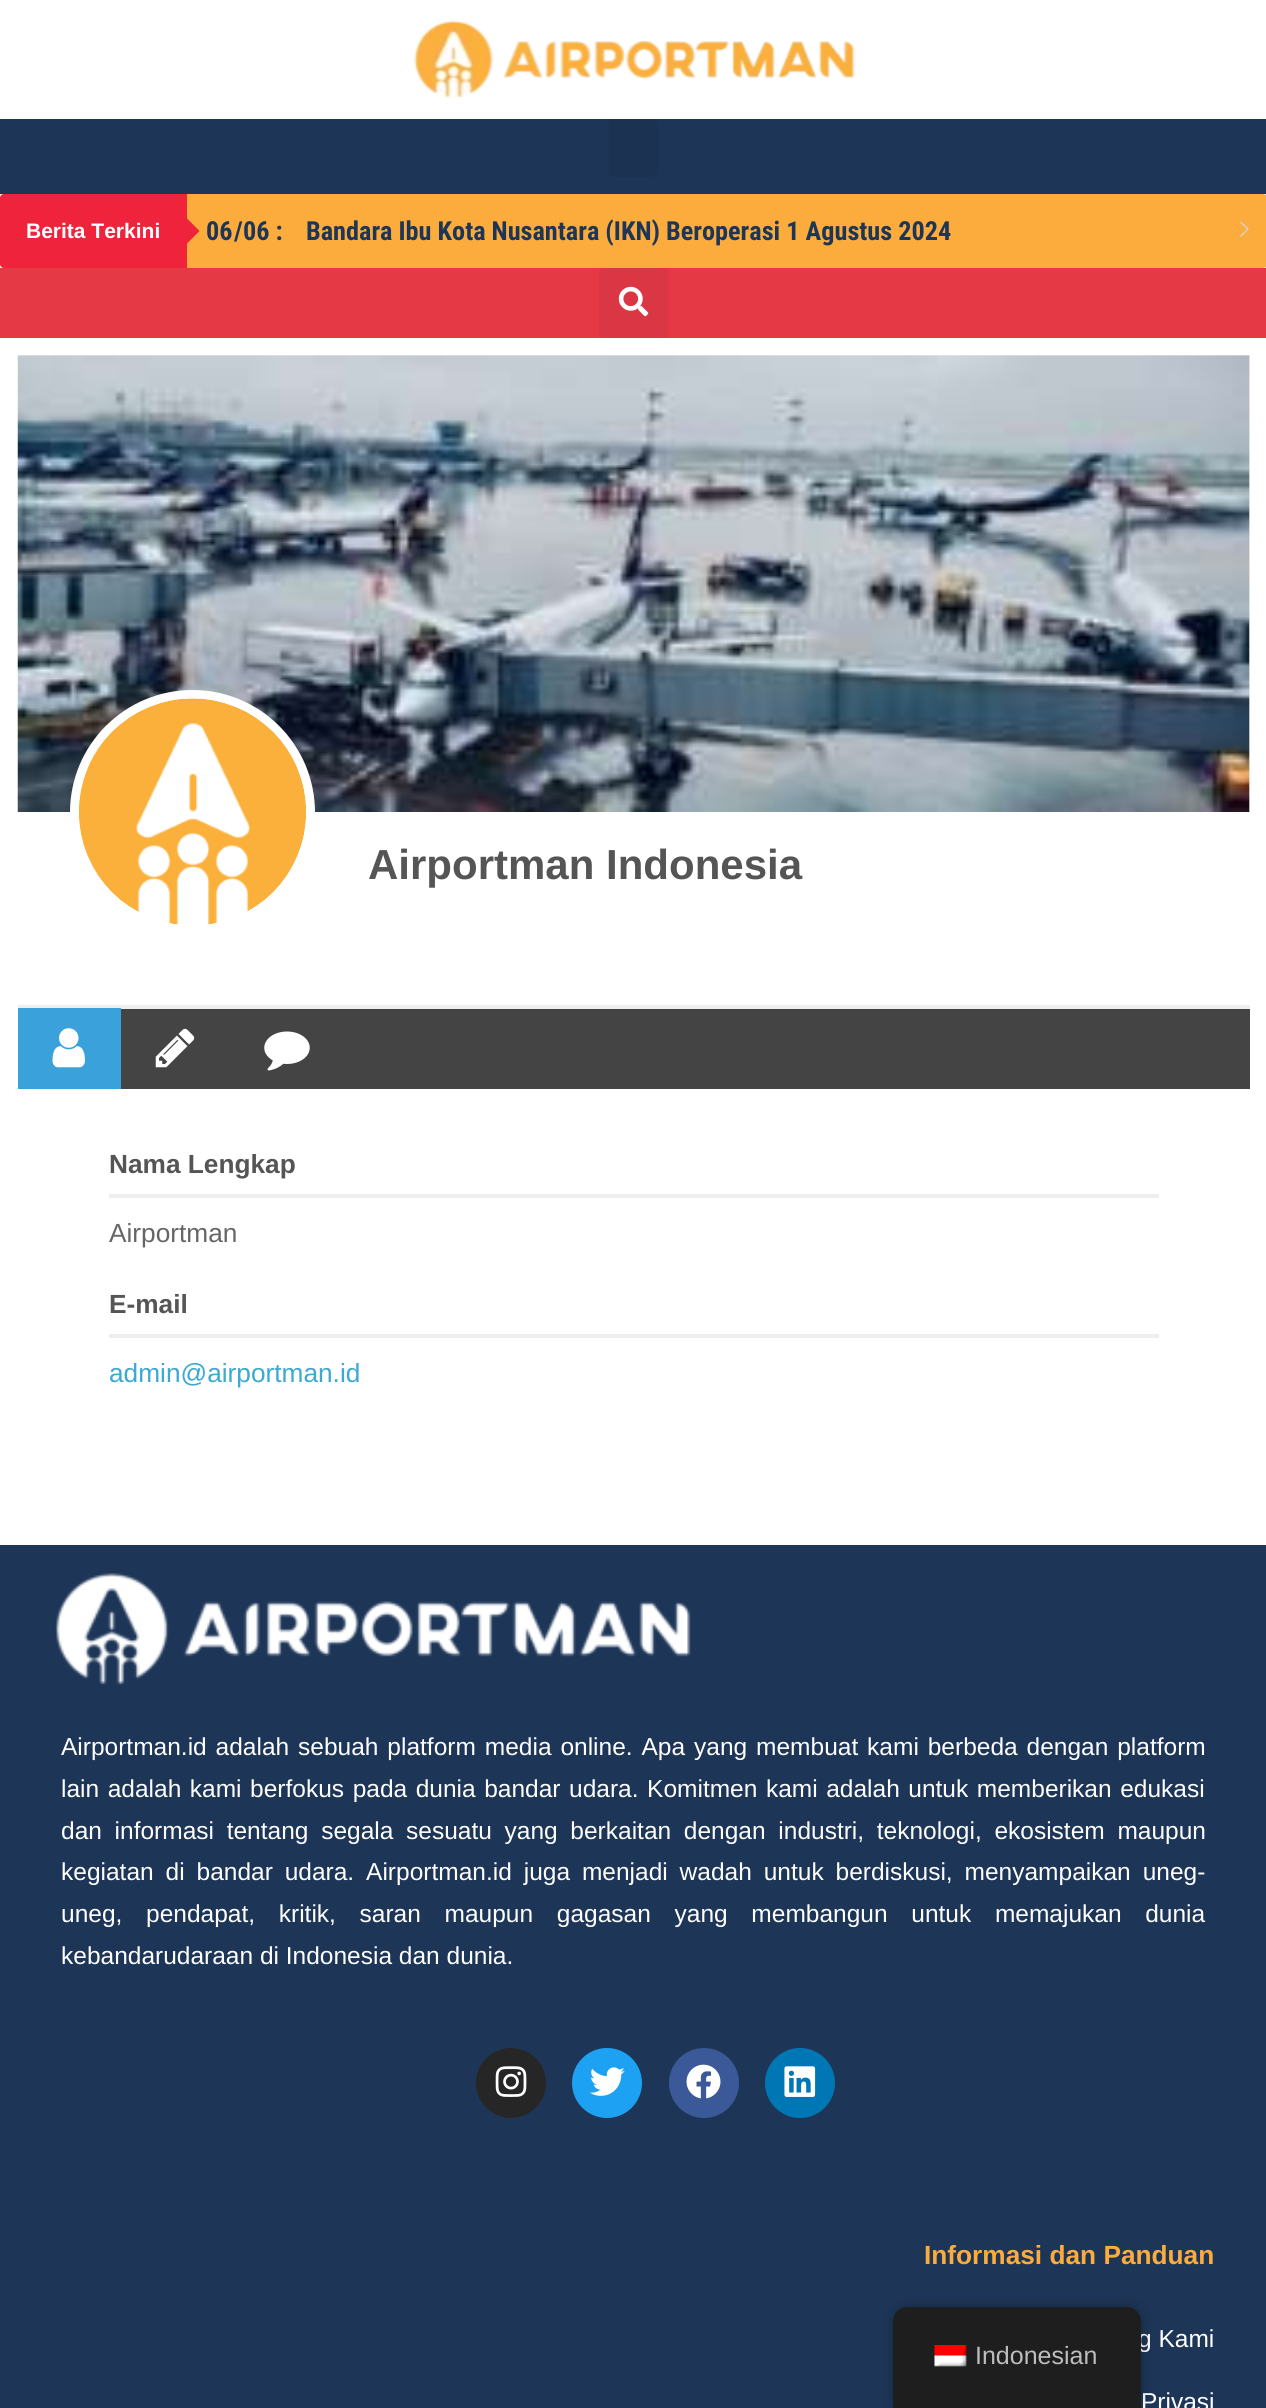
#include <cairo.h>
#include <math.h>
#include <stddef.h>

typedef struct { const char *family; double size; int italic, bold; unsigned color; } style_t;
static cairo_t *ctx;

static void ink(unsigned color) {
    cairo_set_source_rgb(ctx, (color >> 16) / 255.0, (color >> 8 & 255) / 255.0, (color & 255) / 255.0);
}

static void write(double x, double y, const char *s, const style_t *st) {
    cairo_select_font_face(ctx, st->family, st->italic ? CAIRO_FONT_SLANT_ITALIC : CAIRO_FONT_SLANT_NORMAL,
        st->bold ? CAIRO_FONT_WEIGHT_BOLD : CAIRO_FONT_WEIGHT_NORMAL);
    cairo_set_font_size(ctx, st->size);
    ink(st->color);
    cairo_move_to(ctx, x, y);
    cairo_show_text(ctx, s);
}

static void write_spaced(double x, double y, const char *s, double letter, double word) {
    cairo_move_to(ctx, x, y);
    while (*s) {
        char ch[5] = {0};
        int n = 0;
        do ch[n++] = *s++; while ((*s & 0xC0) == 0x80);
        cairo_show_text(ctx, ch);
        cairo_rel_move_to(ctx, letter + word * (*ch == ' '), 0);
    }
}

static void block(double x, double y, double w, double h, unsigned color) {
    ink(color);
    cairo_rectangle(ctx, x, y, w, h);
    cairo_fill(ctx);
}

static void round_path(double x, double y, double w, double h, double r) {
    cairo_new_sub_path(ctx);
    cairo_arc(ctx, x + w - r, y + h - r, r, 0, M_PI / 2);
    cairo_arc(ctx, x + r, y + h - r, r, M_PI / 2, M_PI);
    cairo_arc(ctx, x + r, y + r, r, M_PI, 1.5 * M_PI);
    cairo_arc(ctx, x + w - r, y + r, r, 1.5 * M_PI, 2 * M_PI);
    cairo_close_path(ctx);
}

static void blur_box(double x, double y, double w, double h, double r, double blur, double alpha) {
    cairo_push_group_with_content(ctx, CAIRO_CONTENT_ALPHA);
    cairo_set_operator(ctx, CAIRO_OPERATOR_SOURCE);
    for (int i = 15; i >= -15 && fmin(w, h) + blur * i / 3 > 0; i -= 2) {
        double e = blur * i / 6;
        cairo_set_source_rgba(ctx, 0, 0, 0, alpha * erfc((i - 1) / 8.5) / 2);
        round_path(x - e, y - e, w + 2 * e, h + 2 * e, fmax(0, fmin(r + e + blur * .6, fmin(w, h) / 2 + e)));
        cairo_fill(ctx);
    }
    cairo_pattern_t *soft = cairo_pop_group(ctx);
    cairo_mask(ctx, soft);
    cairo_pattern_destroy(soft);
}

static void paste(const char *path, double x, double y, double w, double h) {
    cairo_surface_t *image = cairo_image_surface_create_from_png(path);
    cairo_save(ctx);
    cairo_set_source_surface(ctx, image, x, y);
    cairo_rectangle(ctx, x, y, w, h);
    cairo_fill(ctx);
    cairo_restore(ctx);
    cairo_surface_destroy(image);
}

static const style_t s1 = {"Liberation Sans", 21, 0, 1, 0xffffff};
static const style_t s2 = {"Roboto Condensed", 26.25, 0, 1, 0x1d3557};
static const style_t s3 = {"Liberation Sans", 42, 0, 1, 0x555555};
static const style_t s4 = {"Liberation Sans", 26.25, 0, 1, 0x555555};
static const style_t s5 = {"Liberation Sans", 26.25, 0, 0, 0x666666};
static const style_t s6 = {"Liberation Sans", 26.25, 0, 0, 0x3ba9d2};
static const style_t s7 = {"Liberation Sans", 24.5, 0, 0, 0xffffff};
static const style_t s8 = {"Liberation Sans", 26.25, 0, 1, 0xfcac3c};
static const style_t s9 = {"Liberation Sans", 25, 0, 0, 0xbdbdbd};

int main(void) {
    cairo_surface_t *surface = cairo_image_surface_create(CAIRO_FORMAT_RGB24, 1266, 2408);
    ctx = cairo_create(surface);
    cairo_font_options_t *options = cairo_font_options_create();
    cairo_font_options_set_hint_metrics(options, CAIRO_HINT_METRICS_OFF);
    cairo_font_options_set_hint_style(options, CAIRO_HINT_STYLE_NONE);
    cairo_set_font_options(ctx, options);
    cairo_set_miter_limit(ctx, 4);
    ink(0xffffff);
    cairo_paint(ctx);
    paste("pic1.png", 414, 20, 442, 79);
    block(0, 119, 1266, 75, 0x1d3557);
    ink(0x1c3253);
    round_path(609, 119, 49, 58, 5);
    cairo_fill(ctx);
    ink(0xfcac3c);
    round_path(0, 194, 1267, 74, 4);
    cairo_fill(ctx);
    ink(0xef233c);
    cairo_new_path(ctx);
    cairo_move_to(ctx, 4, 194);
    cairo_line_to(ctx, 187, 194);
    cairo_line_to(ctx, 187, 268);
    cairo_line_to(ctx, 4, 268);
    cairo_curve_to(ctx, 2, 268, 0, 266, 0, 264);
    cairo_line_to(ctx, 0, 198);
    cairo_curve_to(ctx, 0, 196, 2, 194, 4, 194);
    cairo_close_path(ctx);
    cairo_fill(ctx);
    write(26, 238, "Berita Terkini", &s1);
    ink(0xef233c);
    cairo_new_path(ctx);
    cairo_move_to(ctx, 185.5, 245);
    cairo_line_to(ctx, 185.5, 217);
    cairo_line_to(ctx, 199.5, 231);
    cairo_close_path(ctx);
    cairo_fill(ctx);
    write(206, 240, "06", &s2);
    write(234, 240, "/", &s2);
    write(243, 240, "06 :", &s2);
    write(306, 240, "Bandara Ibu Kota Nusantara (IKN) Beroperasi 1 Agustus 2024", &s2);
    cairo_new_path(ctx);
    cairo_move_to(ctx, 1240.5, 222);
    cairo_line_to(ctx, 1248, 229);
    cairo_line_to(ctx, 1240.5, 236.5);
    ink(0xd5d5d5);
    cairo_set_line_width(ctx, 1.3);
    cairo_stroke(ctx);
    block(0, 268, 1266, 70, 0xe63946);
    ink(0xdb3643);
    round_path(599, 268, 70, 70, 5);
    cairo_fill(ctx);
    paste("pic2.png", 618, 286, 31, 31);
    block(18, 355, 1232, 457, 0xeeeeee);
    paste("pic3.png", 17, 355, 1233, 457);
    block(18, 1005, 1232, 4, 0xeeeeee);
    ink(0xffffff);
    cairo_arc(ctx, 192.5, 812.5, 118, 0, 2 * M_PI);
    cairo_fill_preserve(ctx);
    cairo_set_line_width(ctx, 9);
    cairo_stroke(ctx);
    paste("pic4.png", 79, 698, 227, 227);
    write(368, 879, "Airportman Indonesia", &s3);
    block(121, 1009, 1129, 80, 0x444444);
    block(18, 1008, 103, 81, 0x3ba1da);
    paste("pic5.png", 52, 1028, 33, 40);
    paste("pic6.png", 155, 1028, 40, 40);
    paste("pic7.png", 264, 1031, 46, 40);
    block(109, 1194, 1050, 4, 0xeeeeee);
    write(109, 1173, "Nama Lengkap", &s4);
    write(109, 1242, "Airportman", &s5);
    block(109, 1334, 1050, 4, 0xeeeeee);
    write(109, 1313, "E-mail", &s4);
    write(109, 1382, "admin@airportman.id", &s6);
    block(0, 1545, 1266, 863, 0x1d3557);
    paste("pic8.png", 55, 1573, 636, 112);
    cairo_set_font_size(ctx, 24.5);
    ink(0xffffff);
    write_spaced(61, 1755, "Airportman.id adalah sebuah platform media online. Apa yang membuat kami berbeda dengan platform", 0, 2.1);
    write_spaced(61, 1797, "lain adalah kami berfokus pada dunia bandar udara. Komitmen kami adalah untuk memberikan edukasi", 0, 1.75);
    write_spaced(61, 1839, "dan informasi tentang segala sesuatu yang berkaitan dengan industri, teknologi, ekosistem maupun", 0, 5.9);
    write_spaced(61, 1880, "kegiatan di bandar udara. Airportman.id juga menjadi wadah untuk berdiskusi, menyampaikan uneg-", 0, 5.1);
    write_spaced(61, 1922, "uneg, pendapat, kritik, saran maupun gagasan yang membangun untuk memajukan dunia", 0, 16.9);
    write(61, 1964, "kebandarudaraan di Indonesia dan dunia.", &s7);
    ink(0x262626);
    cairo_new_path(ctx);
    cairo_arc(ctx, 511, 2083, 35, 0, 2 * M_PI);
    cairo_fill(ctx);
    paste("pic9.png", 495, 2066, 32, 31);
    ink(0x1da1f2);
    cairo_arc(ctx, 607, 2083, 35, 0, 2 * M_PI);
    cairo_fill(ctx);
    paste("pic10.png", 590, 2067, 35, 29);
    ink(0x3b5998);
    cairo_arc(ctx, 704, 2083, 35, 0, 2 * M_PI);
    cairo_fill(ctx);
    paste("pic11.png", 686, 2064, 35, 35);
    ink(0x0077b5);
    cairo_arc(ctx, 800, 2083, 35, 0, 2 * M_PI);
    cairo_fill(ctx);
    paste("pic12.png", 784, 2066, 32, 31);
    write(924, 2264, "Informasi dan Panduan", &s8);
    write(1138, 2347, "g Kami", &s7);
    write(1141, 2410, "Privasi", &s7);
    ink(0x000000);
    blur_box(893, 2307, 248, 101, 14, 7, 0.25);
    ink(0x1e1e1e);
    cairo_new_path(ctx);
    cairo_move_to(ctx, 907, 2307);
    cairo_line_to(ctx, 1127, 2307);
    cairo_curve_to(ctx, 1134.5, 2307, 1141, 2313.5, 1141, 2321);
    cairo_line_to(ctx, 1141, 2408);
    cairo_line_to(ctx, 893, 2408);
    cairo_line_to(ctx, 893, 2321);
    cairo_curve_to(ctx, 893, 2313.5, 899.5, 2307, 907, 2307);
    cairo_close_path(ctx);
    cairo_fill(ctx);
    paste("pic13.png", 934, 2345, 33, 22);
    write(975, 2364, "Indonesian", &s9);
    cairo_surface_write_to_png(surface, "screenshot.png");
    cairo_font_options_destroy(options);
    cairo_destroy(ctx);
    cairo_surface_destroy(surface);
    return 0;
}
